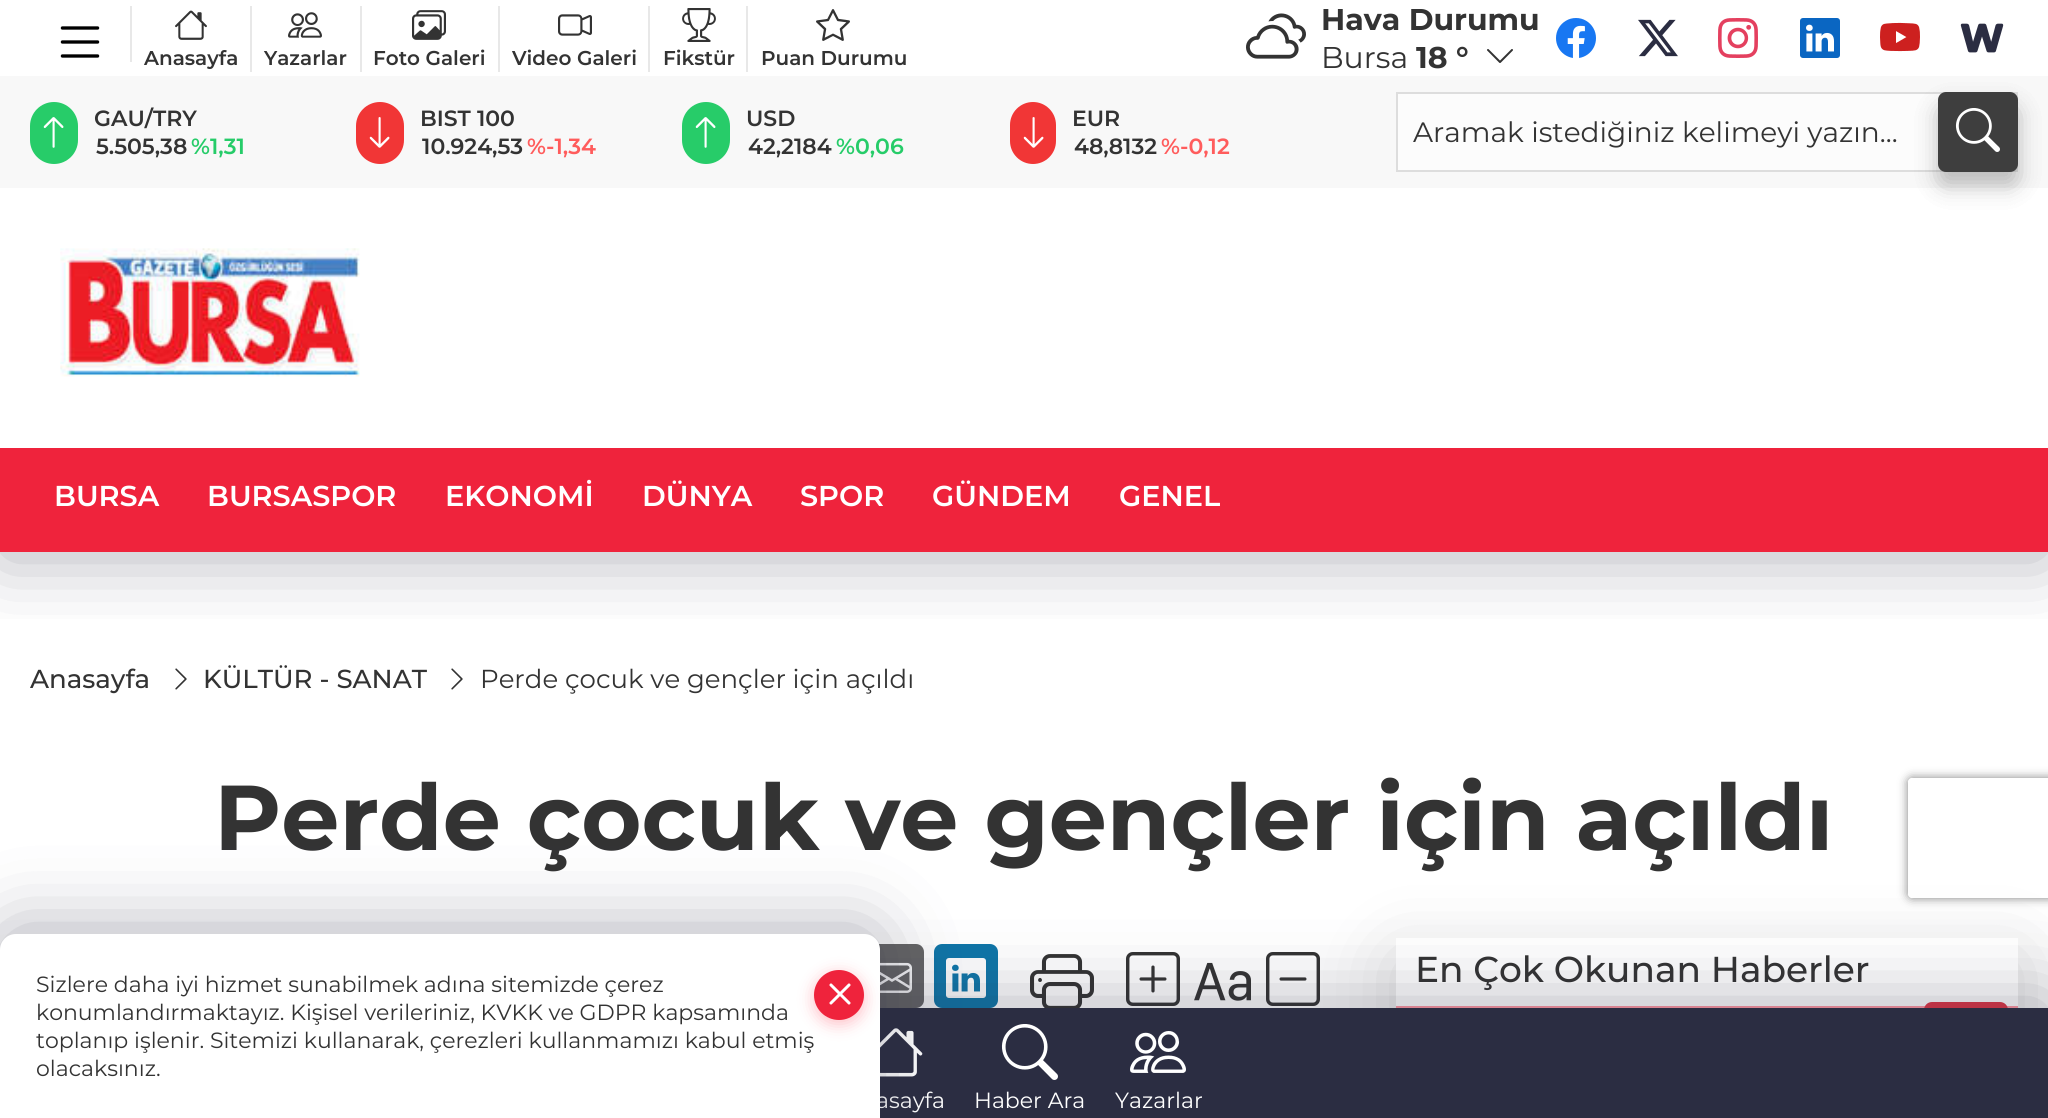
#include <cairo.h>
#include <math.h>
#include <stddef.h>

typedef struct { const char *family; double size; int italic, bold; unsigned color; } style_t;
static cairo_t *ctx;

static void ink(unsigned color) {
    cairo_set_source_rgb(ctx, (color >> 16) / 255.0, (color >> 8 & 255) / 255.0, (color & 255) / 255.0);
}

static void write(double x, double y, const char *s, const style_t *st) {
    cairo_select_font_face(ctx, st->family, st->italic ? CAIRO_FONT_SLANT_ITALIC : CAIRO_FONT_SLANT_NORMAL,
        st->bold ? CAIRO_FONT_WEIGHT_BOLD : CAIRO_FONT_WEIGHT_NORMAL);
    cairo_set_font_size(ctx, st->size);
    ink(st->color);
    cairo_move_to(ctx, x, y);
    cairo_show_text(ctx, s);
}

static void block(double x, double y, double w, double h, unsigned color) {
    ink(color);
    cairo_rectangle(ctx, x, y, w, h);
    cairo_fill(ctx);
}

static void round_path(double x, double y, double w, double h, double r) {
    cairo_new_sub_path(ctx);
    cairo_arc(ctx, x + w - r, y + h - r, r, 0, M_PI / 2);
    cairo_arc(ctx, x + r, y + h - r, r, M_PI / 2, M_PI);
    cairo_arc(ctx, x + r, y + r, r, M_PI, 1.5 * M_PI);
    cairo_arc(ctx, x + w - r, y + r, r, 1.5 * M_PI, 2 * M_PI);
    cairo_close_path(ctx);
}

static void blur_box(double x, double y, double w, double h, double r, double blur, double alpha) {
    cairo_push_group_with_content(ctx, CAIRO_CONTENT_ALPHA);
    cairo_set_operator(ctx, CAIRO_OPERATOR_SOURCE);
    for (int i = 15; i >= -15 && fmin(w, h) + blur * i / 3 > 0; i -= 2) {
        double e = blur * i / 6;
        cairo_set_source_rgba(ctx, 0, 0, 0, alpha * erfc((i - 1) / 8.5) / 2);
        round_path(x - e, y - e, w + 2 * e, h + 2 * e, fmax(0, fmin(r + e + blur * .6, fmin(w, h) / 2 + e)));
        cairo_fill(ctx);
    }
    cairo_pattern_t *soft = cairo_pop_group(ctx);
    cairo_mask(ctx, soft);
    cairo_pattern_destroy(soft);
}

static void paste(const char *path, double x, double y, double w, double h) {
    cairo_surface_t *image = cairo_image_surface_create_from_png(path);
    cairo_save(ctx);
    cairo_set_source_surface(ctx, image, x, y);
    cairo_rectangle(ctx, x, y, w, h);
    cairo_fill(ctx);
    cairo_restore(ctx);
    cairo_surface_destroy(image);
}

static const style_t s1 = {"Montserrat SemiBold", 20, 0, 0, 0x333333};
static const style_t s2 = {"Montserrat", 30, 0, 1, 0x333333};
static const style_t s3 = {"Montserrat", 30, 0, 0, 0x333333};
static const style_t s4 = {"Montserrat SemiBold", 22, 0, 0, 0x333333};
static const style_t s5 = {"Montserrat SemiBold", 22, 0, 0, 0x26cc69};
static const style_t s6 = {"Montserrat SemiBold", 22, 0, 0, 0xff5c5c};
static const style_t s7 = {"Montserrat", 28, 0, 0, 0x333333};
static const style_t s8 = {"Montserrat SemiBold", 28.75, 0, 0, 0xffffff};
static const style_t s9 = {"Montserrat Medium", 26, 0, 0, 0x333333};
static const style_t s10 = {"Montserrat", 26, 0, 0, 0x333333};
static const style_t s11 = {"Montserrat", 92, 0, 1, 0x333333};
static const style_t s12 = {"Montserrat Medium", 36, 0, 0, 0x333333};
static const style_t s13 = {"Montserrat", 22, 0, 0, 0xffffff};
static const style_t s14 = {"Montserrat", 22, 0, 0, 0x333333};

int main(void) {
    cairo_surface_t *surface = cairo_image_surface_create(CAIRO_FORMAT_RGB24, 2048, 1118);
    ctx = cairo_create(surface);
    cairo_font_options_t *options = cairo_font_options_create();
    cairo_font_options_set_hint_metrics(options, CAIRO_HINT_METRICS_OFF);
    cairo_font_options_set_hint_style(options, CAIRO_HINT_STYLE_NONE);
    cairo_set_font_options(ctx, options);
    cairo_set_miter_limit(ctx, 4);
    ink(0xffffff);
    cairo_paint(ctx);
    paste("pic20.png", 175, 668, 12, 22);
    paste("pic20.png", 451, 668, 12, 22);
    cairo_save(ctx);
    cairo_rectangle(ctx, 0, 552, 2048, 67);
    cairo_clip(ctx);
    ink(0x2b2d42);
    blur_box(0, 6, 2048, 552, 0, 38, 0.36);
    cairo_restore(ctx);
    block(130, 6, 2, 56, 0xe8e8e8);
    paste("pic1.png", 60, 26, 40, 32);
    block(250, 6, 2, 66, 0xe8e8e8);
    paste("pic2.png", 175, 10, 32, 30);
    write(144, 65, "Anasayfa", &s1);
    block(360, 6, 2, 66, 0xe8e8e8);
    paste("pic3.png", 288, 12, 34, 26);
    write(264, 65, "Yazarlar", &s1);
    block(498, 6, 2, 66, 0xe8e8e8);
    paste("pic4.png", 412, 10, 34, 30);
    write(373, 65, "Foto Galeri", &s1);
    block(648, 6, 2, 66, 0xe8e8e8);
    paste("pic5.png", 558, 14, 34, 22);
    write(512, 65, "Video Galeri", &s1);
    block(746, 6, 2, 66, 0xe8e8e8);
    paste("pic6.png", 682, 8, 34, 34);
    write(663, 65, "Fikstür", &s1);
    paste("pic7.png", 816, 9, 34, 32);
    write(761, 65, "Puan Durumu", &s1);
    paste("pic8.png", 1246, 13, 60, 46);
    write(1321, 30, "Hava Durumu", &s2);
    write(1321, 68, "Bursa", &s3);
    write(1416, 68, "18 °", &s2);
    paste("pic9.png", 1487, 49, 26, 14);
    paste("pic10.png", 1556, 18, 40, 40);
    paste("pic11.png", 1638, 19, 40, 38);
    paste("pic12.png", 1718, 18, 40, 40);
    paste("pic13.png", 1800, 18, 40, 40);
    paste("pic14.png", 1880, 22, 40, 30);
    paste("pic15.png", 1960, 23, 44, 30);
    block(0, 76, 2048, 112, 0xf8f8f8);
    ink(0x27cc69);
    round_path(30, 102, 48, 62, 24);
    cairo_fill(ctx);
    paste("pic16.png", 43, 117, 21, 31);
    write(94, 126, "GAU/TRY", &s4);
    write(96, 154, "5.505,38", &s4);
    write(191, 154, "%1,31", &s5);
    ink(0xf13636);
    round_path(356, 102, 48, 62, 24);
    cairo_fill(ctx);
    paste("pic17.png", 369, 117, 21, 31);
    write(420, 126, "BIST 100", &s4);
    write(422, 154, "10.924,53", &s4);
    write(527, 154, "%-1,34", &s6);
    ink(0x27cc69);
    round_path(682, 102, 48, 62, 24);
    cairo_fill(ctx);
    paste("pic16.png", 695, 117, 21, 31);
    write(746, 126, "USD", &s4);
    write(748, 154, "42,2184", &s4);
    write(836, 154, "%0,06", &s5);
    ink(0xf13636);
    round_path(1010, 102, 46, 62, 23);
    cairo_fill(ctx);
    paste("pic17.png", 1023, 117, 21, 31);
    write(1072, 126, "EUR", &s4);
    write(1074, 154, "48,8132", &s4);
    write(1161, 154, "%-0,12", &s6);
    ink(0xfcfcfc);
    cairo_rectangle(ctx, 1397, 93, 620, 78);
    cairo_fill_preserve(ctx);
    ink(0xdddddd);
    cairo_stroke(ctx);
    write(1413, 142, "Aramak istediğiniz kelimeyi yazın...", &s7);
    ink(0x3e3e3e);
    blur_box(1938, 106, 80, 80, 8, 11, 0.18);
    blur_box(1938, 106, 80, 80, 8, 11, 0.18);
    ink(0x3e3e3e);
    round_path(1938, 92, 80, 80, 8);
    cairo_fill(ctx);
    paste("pic18.png", 1955, 108, 45, 44);
    paste("pic19.png", 60, 248, 300, 129);
    block(0, 448, 2048, 104, 0xef233c);
    write(54, 506, "BURSA", &s8);
    write(207, 506, "BURSASPOR", &s8);
    write(445, 506, "EKONOMİ", &s8);
    write(642, 506, "DÜNYA", &s8);
    write(800, 506, "SPOR", &s8);
    write(932, 506, "GÜNDEM", &s8);
    write(1119, 506, "GENEL", &s8);
    write(30, 688, "Anasayfa", &s9);
    write(203, 688, "KÜLTÜR - SANAT", &s9);
    write(480, 688, "Perde çocuk ve gençler için açıldı", &s10);
    write(214, 850, "Perde çocuk ve gençler için açıldı", &s11);
    ink(0x666666);
    round_path(860, 944, 64, 64, 8);
    cairo_fill(ctx);
    paste("pic21.png", 880, 962, 32, 31);
    ink(0x0e76a8);
    round_path(934, 944, 64, 64, 8);
    cairo_fill(ctx);
    paste("pic22.png", 946, 958, 40, 40);
    paste("pic23.png", 1030, 954, 64, 54);
    paste("pic24.png", 1126, 952, 54, 54);
    paste("pic25.png", 1194, 962, 57, 39);
    paste("pic26.png", 1266, 952, 54, 54);
    cairo_save(ctx);
    cairo_set_fill_rule(ctx, CAIRO_FILL_RULE_EVEN_ODD);
    cairo_new_path(ctx);
    cairo_move_to(ctx, 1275, 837);
    cairo_line_to(ctx, 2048, 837);
    cairo_line_to(ctx, 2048, 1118);
    cairo_line_to(ctx, 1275, 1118);
    cairo_close_path(ctx);
    cairo_move_to(ctx, 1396, 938);
    cairo_line_to(ctx, 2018, 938);
    cairo_line_to(ctx, 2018, 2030);
    cairo_line_to(ctx, 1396, 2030);
    cairo_close_path(ctx);
    cairo_clip(ctx);
    ink(0x000000);
    blur_box(1396, 958, 622, 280, 0, 40, 0.15);
    cairo_restore(ctx);
    block(1396, 1006, 622, 2, 0xff97a4);
    write(1415, 982, "En Çok Okunan Haberler", &s12);
    ink(0xdc3545);
    round_path(1925, 1003, 82, 74, 7);
    cairo_fill_preserve(ctx);
    cairo_stroke(ctx);
    ink(0x2b2d42);
    blur_box(0, 1002, 2048, 110, 0, 38, 0.36);
    block(880, 1008, 1168, 110, 0x2b2d42);
    paste("pic27.png", 880, 1028, 43, 49);
    write(876, 1108, "asayfa", &s13);
    paste("pic28.png", 1001, 1024, 57, 56);
    write(974, 1108, "Haber Ara", &s13);
    paste("pic29.png", 1130, 1031, 56, 42);
    write(1115, 1108, "Yazarlar", &s13);
    cairo_save(ctx);
    cairo_set_fill_rule(ctx, CAIRO_FILL_RULE_EVEN_ODD);
    cairo_new_path(ctx);
    cairo_move_to(ctx, 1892, 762);
    cairo_line_to(ctx, 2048, 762);
    cairo_line_to(ctx, 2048, 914);
    cairo_line_to(ctx, 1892, 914);
    cairo_close_path(ctx);
    cairo_move_to(ctx, 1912, 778);
    cairo_line_to(ctx, 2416, 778);
    cairo_curve_to(ctx, 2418, 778, 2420, 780, 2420, 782);
    cairo_line_to(ctx, 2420, 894);
    cairo_curve_to(ctx, 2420, 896, 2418, 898, 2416, 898);
    cairo_line_to(ctx, 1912, 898);
    cairo_curve_to(ctx, 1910, 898, 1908, 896, 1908, 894);
    cairo_line_to(ctx, 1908, 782);
    cairo_curve_to(ctx, 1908, 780, 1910, 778, 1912, 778);
    cairo_close_path(ctx);
    cairo_clip(ctx);
    ink(0x808080);
    blur_box(1908, 778, 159, 120, 4, 5, 1);
    cairo_restore(ctx);
    ink(0x2b2d42);
    blur_box(0, 928, 880, 184, 16, 38, 0.36);
    ink(0xffffff);
    cairo_new_path(ctx);
    cairo_move_to(ctx, 16, 934);
    cairo_line_to(ctx, 864, 934);
    cairo_curve_to(ctx, 873, 934, 880, 941, 880, 950);
    cairo_line_to(ctx, 880, 1118);
    cairo_line_to(ctx, 0, 1118);
    cairo_line_to(ctx, 0, 950);
    cairo_curve_to(ctx, 0, 941, 7, 934, 16, 934);
    cairo_close_path(ctx);
    cairo_fill(ctx);
    write(36, 992, "Sizlere daha iyi hizmet sunabilmek adına sitemizde çerez", &s14);
    ink(0xff566a);
    blur_box(814, 974, 50, 50, 25, 8, 0.38);
    ink(0xef233c);
    cairo_arc(ctx, 839, 995, 25, 0, 2 * M_PI);
    cairo_fill(ctx);
    paste("pic30.png", 829, 983, 22, 22);
    write(36, 1020, "konumlandırmaktayız. Kişisel verileriniz, KVKK ve GDPR kapsamında", &s14);
    write(36, 1048, "toplanıp işlenir. Sitemizi kullanarak, çerezleri kullanmamızı kabul etmiş", &s14);
    write(36, 1076, "olacaksınız.", &s14);
    cairo_surface_write_to_png(surface, "screenshot.png");
    cairo_font_options_destroy(options);
    cairo_destroy(ctx);
    cairo_surface_destroy(surface);
    return 0;
}
